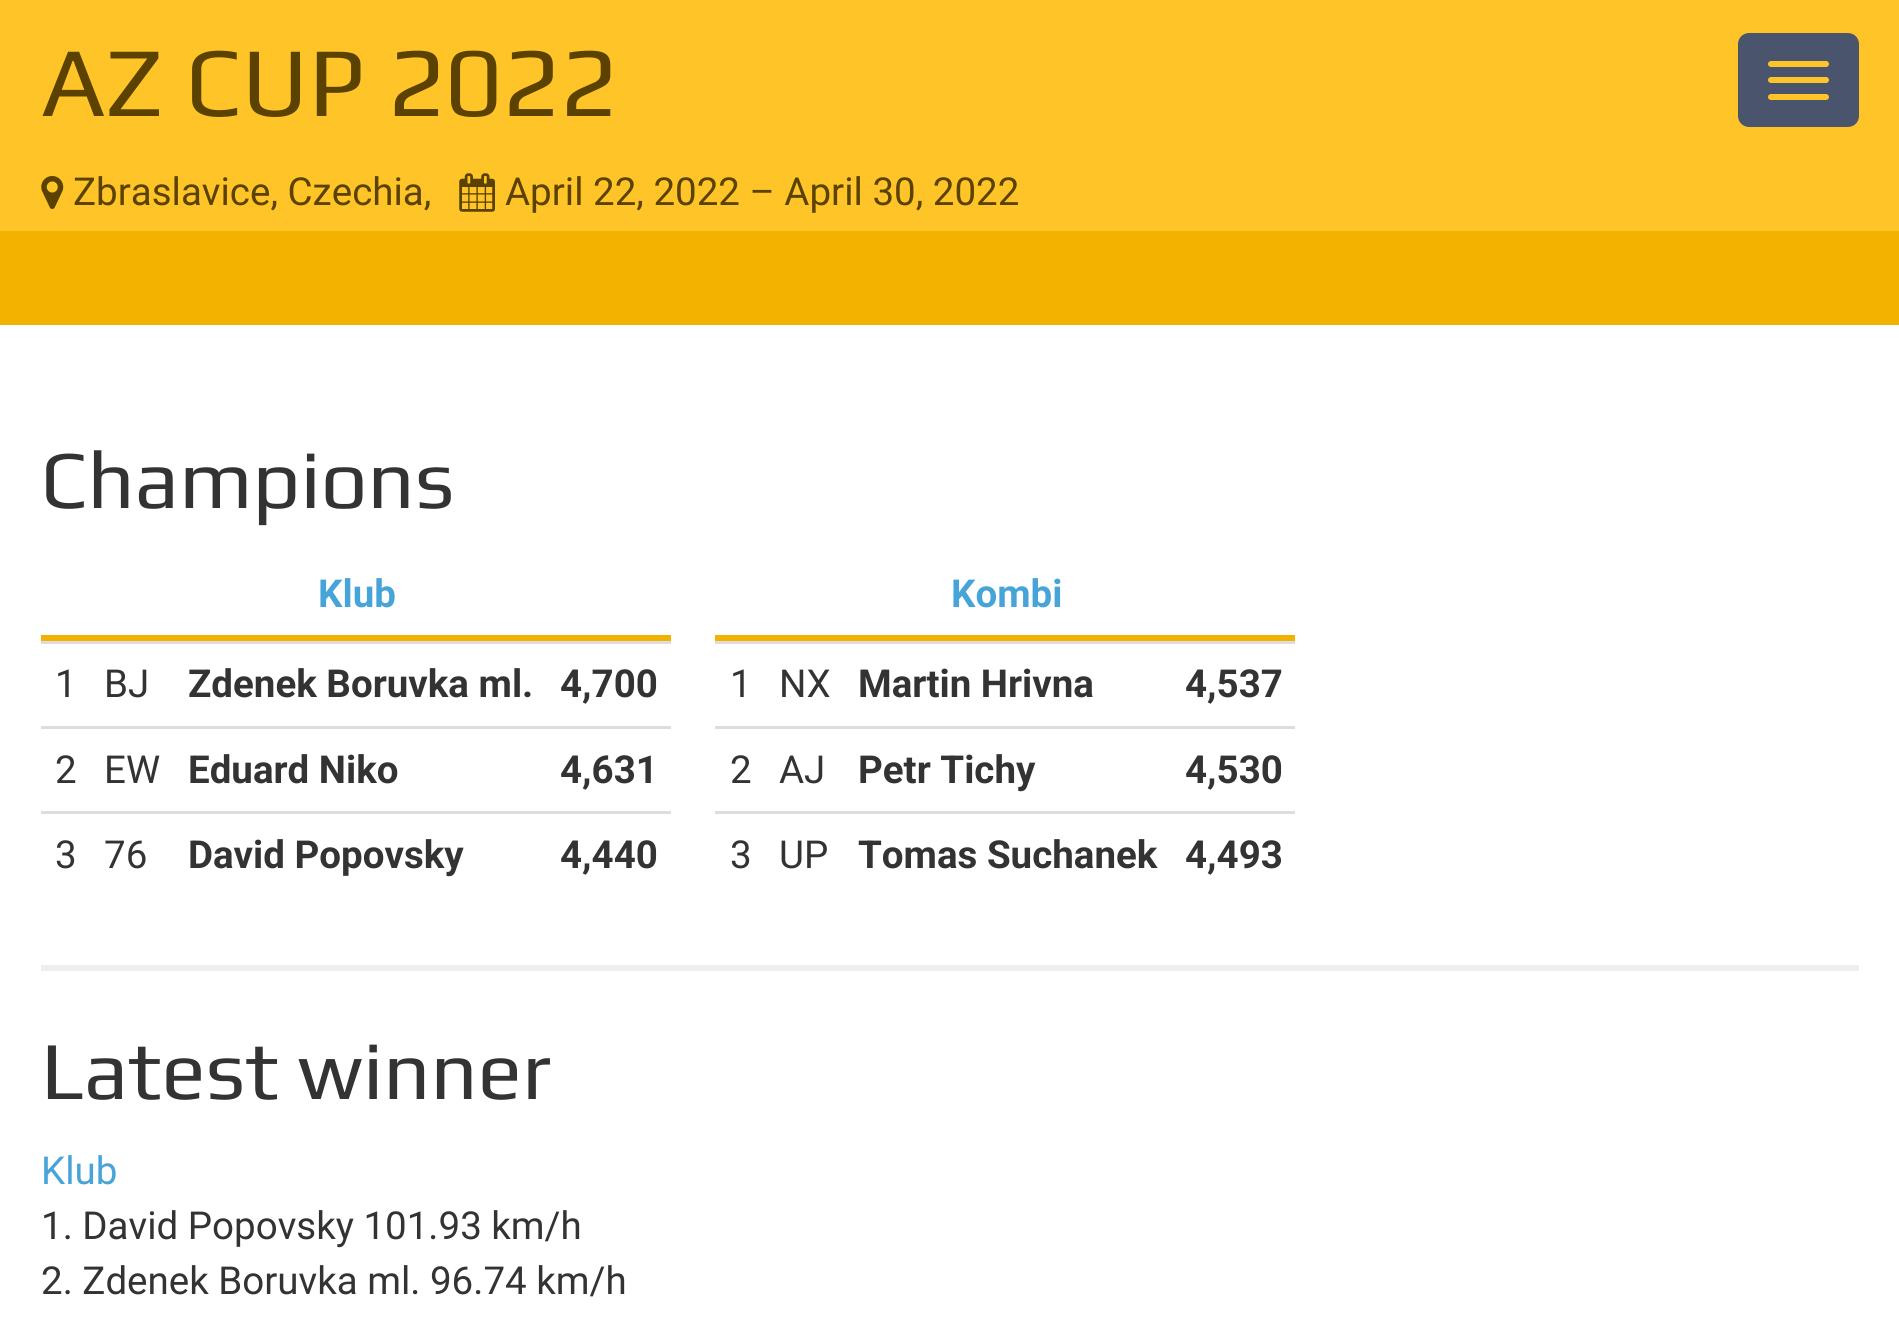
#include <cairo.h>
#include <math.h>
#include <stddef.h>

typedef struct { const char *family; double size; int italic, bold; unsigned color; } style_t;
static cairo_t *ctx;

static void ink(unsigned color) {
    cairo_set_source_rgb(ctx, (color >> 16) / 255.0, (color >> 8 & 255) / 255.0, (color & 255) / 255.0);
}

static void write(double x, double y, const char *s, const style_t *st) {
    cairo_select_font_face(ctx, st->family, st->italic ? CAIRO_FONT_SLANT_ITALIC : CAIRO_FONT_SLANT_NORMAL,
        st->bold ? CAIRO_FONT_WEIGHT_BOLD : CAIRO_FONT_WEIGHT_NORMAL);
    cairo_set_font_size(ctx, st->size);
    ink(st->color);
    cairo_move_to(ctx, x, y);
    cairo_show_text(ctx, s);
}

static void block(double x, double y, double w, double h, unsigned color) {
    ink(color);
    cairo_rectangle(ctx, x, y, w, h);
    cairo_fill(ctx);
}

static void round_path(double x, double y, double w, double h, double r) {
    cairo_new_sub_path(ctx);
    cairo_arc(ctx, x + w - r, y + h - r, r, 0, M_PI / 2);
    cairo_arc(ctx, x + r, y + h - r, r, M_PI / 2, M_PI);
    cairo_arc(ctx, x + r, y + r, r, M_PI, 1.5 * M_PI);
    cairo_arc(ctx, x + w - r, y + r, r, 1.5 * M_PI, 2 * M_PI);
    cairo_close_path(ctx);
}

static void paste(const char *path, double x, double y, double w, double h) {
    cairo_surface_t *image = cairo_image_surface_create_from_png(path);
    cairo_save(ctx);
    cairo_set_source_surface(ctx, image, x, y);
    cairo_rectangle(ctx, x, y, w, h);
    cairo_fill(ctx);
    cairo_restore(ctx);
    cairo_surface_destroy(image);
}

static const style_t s1 = {"Play", 99, 0, 0, 0x5b4200};
static const style_t s2 = {"Roboto", 38.5, 0, 0, 0x5b4200};
static const style_t s3 = {"Play", 82.5, 0, 0, 0x333333};
static const style_t s4 = {"Roboto", 38.5, 0, 1, 0x47a4d9};
static const style_t s5 = {"Roboto", 38.5, 0, 0, 0x333333};
static const style_t s6 = {"Roboto", 38.5, 0, 1, 0x333333};
static const style_t s7 = {"Roboto", 38.5, 0, 0, 0x47a4d9};

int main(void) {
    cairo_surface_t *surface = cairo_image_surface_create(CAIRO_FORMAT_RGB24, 1899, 1323);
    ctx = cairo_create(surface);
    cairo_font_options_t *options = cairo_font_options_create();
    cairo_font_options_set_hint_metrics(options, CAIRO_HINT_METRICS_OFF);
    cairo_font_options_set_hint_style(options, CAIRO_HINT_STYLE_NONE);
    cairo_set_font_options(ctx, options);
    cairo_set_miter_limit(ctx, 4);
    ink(0xffffff);
    cairo_paint(ctx);
    block(0, 0, 1899, 231, 0xffc528);
    write(41, 116, "AZ CUP 2022", &s1);
    ink(0x4a556d);
    round_path(1739.5, 34.5, 118, 91, 9.5);
    cairo_fill_preserve(ctx);
    cairo_set_line_width(ctx, 3);
    cairo_stroke(ctx);
    ink(0xffc528);
    round_path(1768, 61, 61, 6, 3);
    cairo_fill(ctx);
    round_path(1768, 77, 61, 6, 3);
    cairo_fill(ctx);
    round_path(1768, 94, 61, 6, 3);
    cairo_fill(ctx);
    paste("pic1.png", 41, 176, 23, 33);
    write(73, 205, "Zbraslavice, Czechia,", &s2);
    paste("pic2.png", 459, 173, 36, 39);
    write(505, 205, "April 22, 2022 – April 30, 2022", &s2);
    block(0, 231, 1899, 94, 0xf4b200);
    write(41, 508, "Champions", &s3);
    block(41, 635, 630, 6, 0xf4b200);
    write(318, 607, "Klub", &s4);
    block(41, 641, 630, 3, 0xdddddd);
    write(55, 697, "1", &s5);
    write(104, 697, "BJ", &s5);
    write(188, 697, "Zdenek Boruvka ml.", &s6);
    write(560, 697, "4,700", &s6);
    block(41, 726, 630, 3, 0xdddddd);
    write(55, 783, "2", &s5);
    write(104, 783, "EW", &s5);
    write(188, 783, "Eduard Niko", &s6);
    write(560, 783, "4,631", &s6);
    block(41, 811, 630, 3, 0xdddddd);
    write(55, 868, "3", &s5);
    write(104, 868, "76", &s5);
    write(188, 868, "David Popovsky", &s6);
    write(560, 868, "4,440", &s6);
    block(715, 635, 580, 6, 0xf4b200);
    write(951, 607, "Kombi", &s4);
    block(715, 641, 580, 3, 0xdddddd);
    write(730, 697, "1", &s5);
    write(779, 697, "NX", &s5);
    write(858, 697, "Martin Hrivna", &s6);
    write(1185, 697, "4,537", &s6);
    block(715, 726, 580, 3, 0xdddddd);
    write(730, 783, "2", &s5);
    write(779, 783, "AJ", &s5);
    write(858, 783, "Petr Tichy", &s6);
    write(1185, 783, "4,530", &s6);
    block(715, 811, 580, 3, 0xdddddd);
    write(730, 868, "3", &s5);
    write(779, 868, "UP", &s5);
    write(858, 868, "Tomas Suchanek", &s6);
    write(1185, 868, "4,493", &s6);
    block(41, 965, 1818, 6, 0xeeeeee);
    write(41, 1099, "Latest winner", &s3);
    write(41, 1184, "Klub", &s7);
    write(41, 1239, "1. David Popovsky 101.93 km/h", &s5);
    write(41, 1294, "2. Zdenek Boruvka ml. 96.74 km/h", &s5);
    cairo_surface_write_to_png(surface, "screenshot.png");
    cairo_font_options_destroy(options);
    cairo_destroy(ctx);
    cairo_surface_destroy(surface);
    return 0;
}
